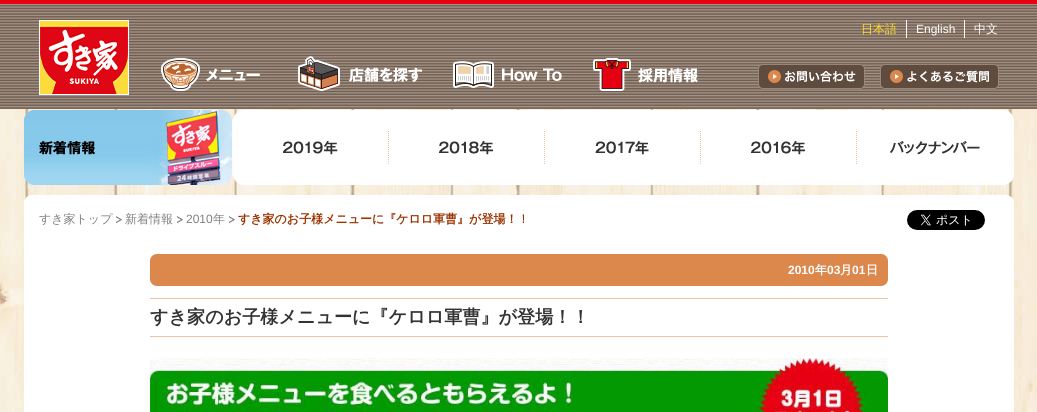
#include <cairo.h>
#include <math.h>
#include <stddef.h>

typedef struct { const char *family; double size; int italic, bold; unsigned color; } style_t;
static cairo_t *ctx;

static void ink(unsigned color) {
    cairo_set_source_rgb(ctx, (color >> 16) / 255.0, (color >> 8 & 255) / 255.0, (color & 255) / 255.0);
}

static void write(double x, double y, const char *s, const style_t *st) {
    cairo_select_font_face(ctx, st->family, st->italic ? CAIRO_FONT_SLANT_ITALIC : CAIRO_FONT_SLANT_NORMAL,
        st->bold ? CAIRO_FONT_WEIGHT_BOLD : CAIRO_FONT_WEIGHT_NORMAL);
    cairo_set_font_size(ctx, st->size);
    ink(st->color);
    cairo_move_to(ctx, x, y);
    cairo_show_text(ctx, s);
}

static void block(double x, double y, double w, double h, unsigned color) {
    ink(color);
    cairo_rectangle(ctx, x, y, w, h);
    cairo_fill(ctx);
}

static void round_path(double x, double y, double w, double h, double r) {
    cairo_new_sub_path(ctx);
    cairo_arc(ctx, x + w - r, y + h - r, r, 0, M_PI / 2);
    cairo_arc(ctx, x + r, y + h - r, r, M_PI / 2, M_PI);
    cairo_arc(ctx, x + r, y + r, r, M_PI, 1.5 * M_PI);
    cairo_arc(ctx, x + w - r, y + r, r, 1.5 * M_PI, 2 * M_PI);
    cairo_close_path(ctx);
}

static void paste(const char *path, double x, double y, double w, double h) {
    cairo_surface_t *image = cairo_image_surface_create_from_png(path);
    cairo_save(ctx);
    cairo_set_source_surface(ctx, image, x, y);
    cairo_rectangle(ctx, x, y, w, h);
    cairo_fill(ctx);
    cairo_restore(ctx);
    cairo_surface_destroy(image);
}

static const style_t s1 = {"WenQuanYi Zen Hei Medium", 12, 0, 0, 0xffdc26};
static const style_t s2 = {"Liberation Sans", 12, 0, 0, 0xffffff};
static const style_t s3 = {"WenQuanYi Zen Hei Medium", 12, 0, 0, 0xffffff};
static const style_t s4 = {"WenQuanYi Zen Hei Medium", 12, 0, 0, 0x7f7f7f};
static const style_t s5 = {"Liberation Sans", 12, 0, 0, 0x7f7f7f};
static const style_t s6 = {"WenQuanYi Zen Hei", 12, 0, 1, 0x993300};
static const style_t s7 = {"Liberation Sans", 12, 0, 1, 0xffffff};
static const style_t s8 = {"WenQuanYi Zen Hei", 12, 0, 1, 0xffffff};
static const style_t s9 = {"WenQuanYi Zen Hei", 18.1, 0, 1, 0x333333};

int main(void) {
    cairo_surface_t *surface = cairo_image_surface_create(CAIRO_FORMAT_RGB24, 1037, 412);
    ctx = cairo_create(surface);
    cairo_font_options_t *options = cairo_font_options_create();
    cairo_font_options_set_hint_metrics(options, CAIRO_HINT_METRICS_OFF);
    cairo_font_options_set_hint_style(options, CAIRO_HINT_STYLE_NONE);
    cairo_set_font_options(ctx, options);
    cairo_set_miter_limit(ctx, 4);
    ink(0xffffff);
    cairo_paint(ctx);
    paste("pic1.png", 0, 109, 1037, 303);
    paste("pic2.png", 0, 0, 1037, 109);
    paste("pic3.png", 39, 20, 90, 75);
    block(906, 20, 1, 18, 0xffffff);
    write(861, 33, "日本語", &s1);
    block(964, 20, 1, 18, 0xffffff);
    write(916, 33, "English", &s2);
    write(974, 33, "中文", &s3);
    paste("pic4.png", 161, 58, 99, 33);
    paste("pic5.png", 298, 56, 124, 35);
    paste("pic6.png", 453, 61, 109, 27);
    paste("pic7.png", 593, 58, 105, 33);
    paste("pic8.png", 758, 64, 107, 25);
    paste("pic9.png", 880, 64, 119, 25);
    paste("pic10.png", 24, 110, 990, 75);
    paste("pic11.png", 283, 141, 55, 14);
    paste("pic12.png", 439, 141, 54, 14);
    paste("pic13.png", 595, 141, 54, 14);
    paste("pic14.png", 751, 141, 54, 14);
    paste("pic15.png", 890, 141, 90, 14);
    round_path(24, 195, 990, 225, 8);
    cairo_fill(ctx);
    paste("pic16.png", 116, 216, 6, 7);
    write(39, 223, "すき家トップ", &s4);
    paste("pic16.png", 177, 216, 6, 7);
    write(125, 223, "新着情報", &s4);
    paste("pic16.png", 229, 216, 6, 7);
    write(186, 223, "2010", &s5);
    write(213, 223, "年", &s4);
    write(238, 223, "すき家のお子様メニューに『ケロロ軍曹』が登場！！", &s6);
    paste("pic17.png", 907, 210, 78, 20);
    ink(0xdc874c);
    round_path(150, 254, 738, 32, 7);
    cairo_fill(ctx);
    write(788, 274, "2010", &s7);
    write(815, 274, "年", &s8);
    write(827, 274, "03", &s7);
    write(840, 274, "月", &s8);
    write(852, 274, "01", &s7);
    write(866, 274, "日", &s8);
    block(150, 298, 738, 1, 0xedc3a5);
    block(150, 336, 738, 1, 0xedc3a5);
    write(150, 323, "すき家のお子様メニューに『ケロロ軍曹』が登場！！", &s9);
    paste("pic18.png", 150, 358, 738, 54);
    cairo_surface_write_to_png(surface, "screenshot.png");
    cairo_font_options_destroy(options);
    cairo_destroy(ctx);
    cairo_surface_destroy(surface);
    return 0;
}
